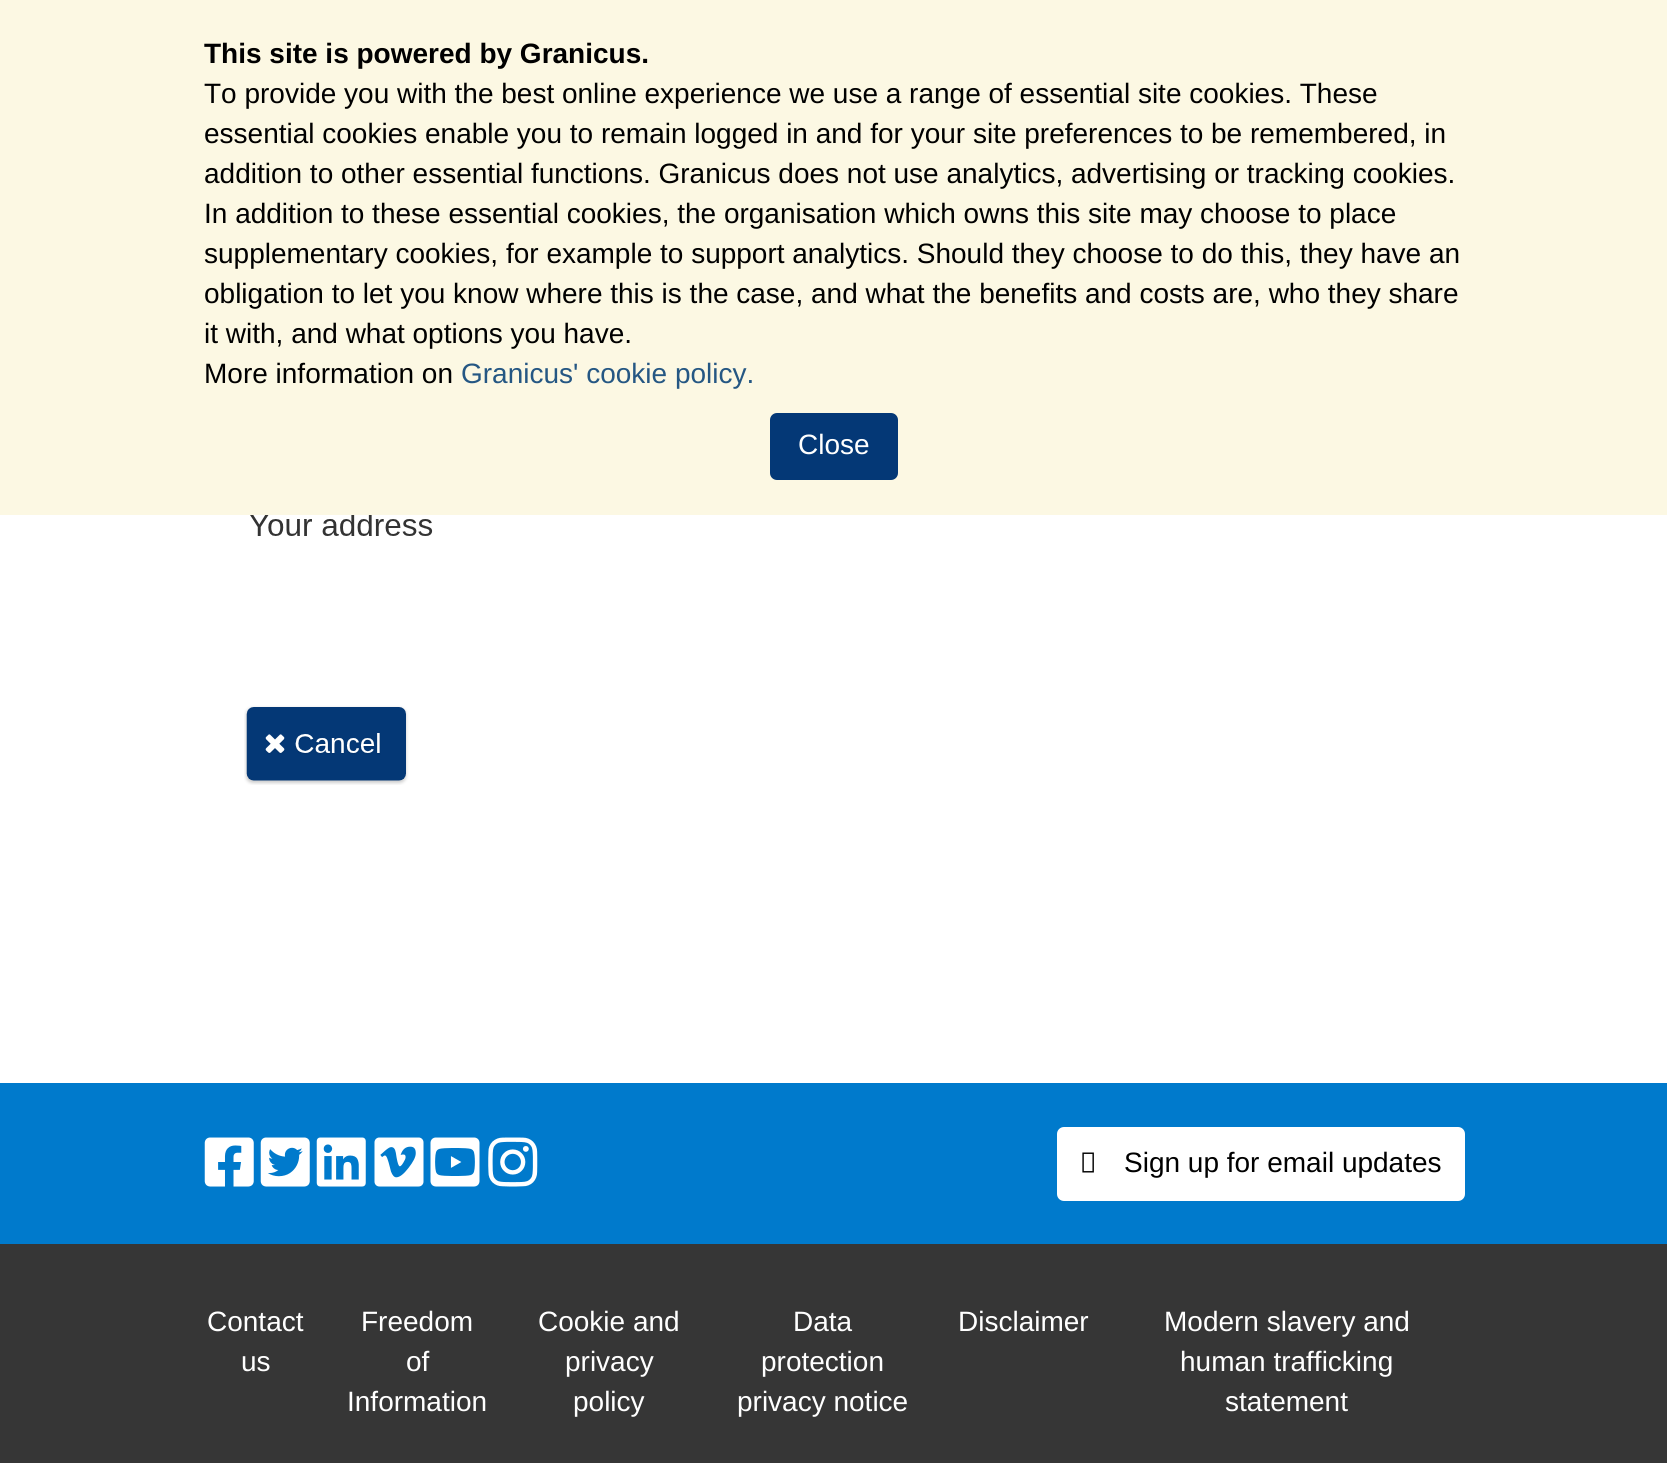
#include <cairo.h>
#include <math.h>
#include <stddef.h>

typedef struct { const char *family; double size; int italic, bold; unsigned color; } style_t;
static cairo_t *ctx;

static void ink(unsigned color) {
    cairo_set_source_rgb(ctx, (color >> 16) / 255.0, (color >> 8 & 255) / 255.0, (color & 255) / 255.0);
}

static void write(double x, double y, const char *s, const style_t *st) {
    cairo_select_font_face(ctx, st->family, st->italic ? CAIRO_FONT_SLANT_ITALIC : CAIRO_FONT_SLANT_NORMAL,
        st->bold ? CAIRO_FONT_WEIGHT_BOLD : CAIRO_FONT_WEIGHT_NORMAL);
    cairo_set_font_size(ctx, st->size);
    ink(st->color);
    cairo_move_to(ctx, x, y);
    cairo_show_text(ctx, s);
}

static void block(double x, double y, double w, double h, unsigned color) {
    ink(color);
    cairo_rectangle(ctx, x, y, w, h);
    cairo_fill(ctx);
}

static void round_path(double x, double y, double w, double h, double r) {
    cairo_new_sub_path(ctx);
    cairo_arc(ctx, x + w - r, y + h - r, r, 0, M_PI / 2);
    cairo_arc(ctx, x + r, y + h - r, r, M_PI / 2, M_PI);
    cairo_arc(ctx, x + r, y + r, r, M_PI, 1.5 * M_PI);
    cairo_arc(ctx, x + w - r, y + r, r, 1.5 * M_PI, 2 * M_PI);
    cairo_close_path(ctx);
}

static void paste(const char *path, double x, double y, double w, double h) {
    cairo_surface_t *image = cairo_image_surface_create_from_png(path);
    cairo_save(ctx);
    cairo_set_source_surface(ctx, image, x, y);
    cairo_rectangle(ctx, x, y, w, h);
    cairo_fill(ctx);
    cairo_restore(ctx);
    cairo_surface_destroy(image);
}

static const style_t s1 = {"Liberation Sans", 28, 0, 1, 0x000000};
static const style_t s2 = {"Liberation Sans", 28, 0, 0, 0x000000};
static const style_t s3 = {"Liberation Sans", 28, 0, 0, 0x255783};
static const style_t s4 = {"Liberation Sans", 28, 0, 0, 0xffffff};

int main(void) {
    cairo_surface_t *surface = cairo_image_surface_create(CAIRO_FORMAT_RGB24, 1667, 1463);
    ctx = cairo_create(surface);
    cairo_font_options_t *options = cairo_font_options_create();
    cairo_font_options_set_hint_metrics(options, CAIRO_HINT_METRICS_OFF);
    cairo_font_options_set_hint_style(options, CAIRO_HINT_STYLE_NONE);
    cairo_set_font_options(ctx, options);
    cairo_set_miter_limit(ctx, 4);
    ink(0xffffff);
    cairo_paint(ctx);
    block(0, 0, 1667, 515, 0xfcf8e3);
    write(204, 63, "This site is powered by Granicus.", &s1);
    write(204, 103, "To provide you with the best online experience we use a range of essential site cookies. These", &s2);
    write(204, 143, "essential cookies enable you to remain logged in and for your site preferences to be remembered, in", &s2);
    write(204, 183, "addition to other essential functions. Granicus does not use analytics, advertising or tracking cookies.", &s2);
    write(204, 223, "In addition to these essential cookies, the organisation which owns this site may choose to place", &s2);
    write(204, 263, "supplementary cookies, for example to support analytics. Should they choose to do this, they have an", &s2);
    write(204, 303, "obligation to let you know where this is the case, and what the benefits and costs are, who they share", &s2);
    write(204, 343, "it with, and what options you have.", &s2);
    write(204, 383, "More information on", &s2);
    write(461, 383, "Granicus' cookie policy.", &s3);
    ink(0x043876);
    round_path(770, 413, 128, 67, 7);
    cairo_fill(ctx);
    write(798, 454, "Close", &s4);
    paste("pic1.png", 244, 515, 1194, 270);
    block(0, 1083, 1667, 161, 0x007acc);
    paste("pic2.png", 204, 1137, 50, 50);
    paste("pic3.png", 260, 1137, 50, 50);
    paste("pic4.png", 316, 1137, 50, 50);
    paste("pic5.png", 374, 1137, 50, 50);
    paste("pic6.png", 430, 1137, 50, 50);
    paste("pic7.png", 488, 1137, 50, 50);
    ink(0xffffff);
    round_path(1057, 1127, 408, 74, 7);
    cairo_fill(ctx);
    paste("pic8.png", 1082, 1152, 12, 21);
    write(1124, 1172, "Sign up for email updates", &s2);
    block(0, 1244, 1667, 219, 0x363636);
    write(207, 1331, "Contact", &s4);
    write(241, 1371, "us", &s4);
    write(361, 1331, "Freedom", &s4);
    write(406, 1371, "of", &s4);
    write(347, 1411, "Information", &s4);
    write(538, 1331, "Cookie and", &s4);
    write(565, 1371, "privacy", &s4);
    write(573, 1411, "policy", &s4);
    write(793, 1331, "Data", &s4);
    write(761, 1371, "protection", &s4);
    write(737, 1411, "privacy notice", &s4);
    write(958, 1331, "Disclaimer", &s4);
    write(1164, 1331, "Modern slavery and", &s4);
    write(1180, 1371, "human trafficking", &s4);
    write(1225, 1411, "statement", &s4);
    cairo_surface_write_to_png(surface, "screenshot.png");
    cairo_font_options_destroy(options);
    cairo_destroy(ctx);
    cairo_surface_destroy(surface);
    return 0;
}
